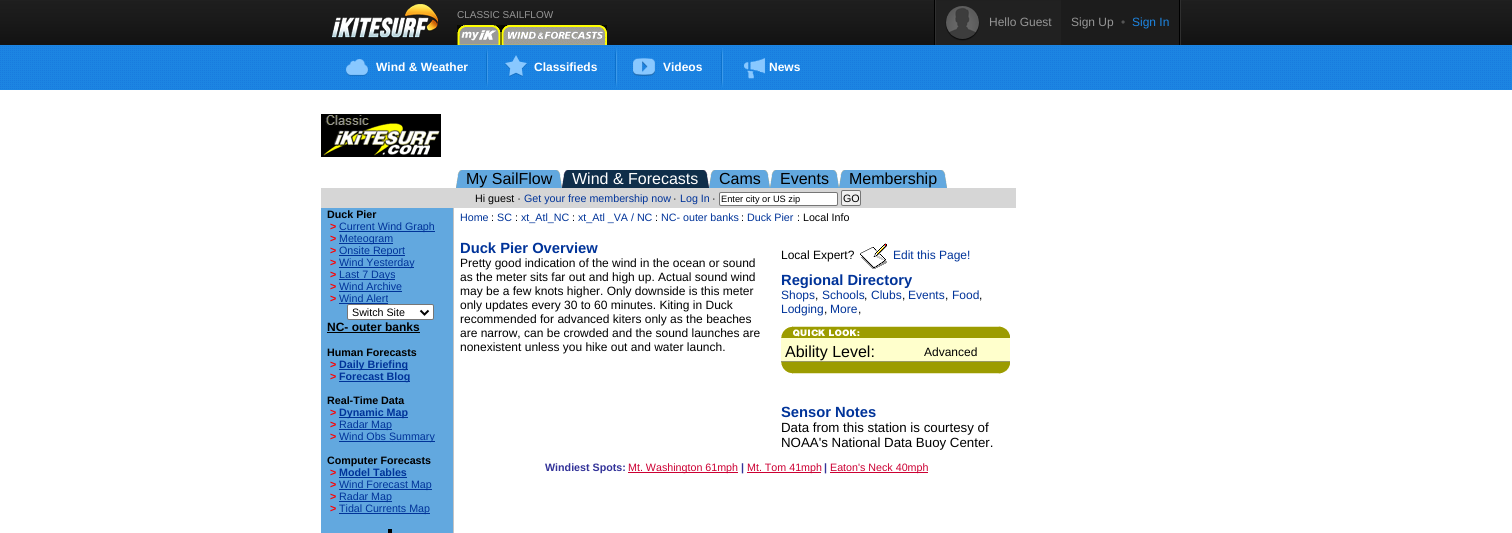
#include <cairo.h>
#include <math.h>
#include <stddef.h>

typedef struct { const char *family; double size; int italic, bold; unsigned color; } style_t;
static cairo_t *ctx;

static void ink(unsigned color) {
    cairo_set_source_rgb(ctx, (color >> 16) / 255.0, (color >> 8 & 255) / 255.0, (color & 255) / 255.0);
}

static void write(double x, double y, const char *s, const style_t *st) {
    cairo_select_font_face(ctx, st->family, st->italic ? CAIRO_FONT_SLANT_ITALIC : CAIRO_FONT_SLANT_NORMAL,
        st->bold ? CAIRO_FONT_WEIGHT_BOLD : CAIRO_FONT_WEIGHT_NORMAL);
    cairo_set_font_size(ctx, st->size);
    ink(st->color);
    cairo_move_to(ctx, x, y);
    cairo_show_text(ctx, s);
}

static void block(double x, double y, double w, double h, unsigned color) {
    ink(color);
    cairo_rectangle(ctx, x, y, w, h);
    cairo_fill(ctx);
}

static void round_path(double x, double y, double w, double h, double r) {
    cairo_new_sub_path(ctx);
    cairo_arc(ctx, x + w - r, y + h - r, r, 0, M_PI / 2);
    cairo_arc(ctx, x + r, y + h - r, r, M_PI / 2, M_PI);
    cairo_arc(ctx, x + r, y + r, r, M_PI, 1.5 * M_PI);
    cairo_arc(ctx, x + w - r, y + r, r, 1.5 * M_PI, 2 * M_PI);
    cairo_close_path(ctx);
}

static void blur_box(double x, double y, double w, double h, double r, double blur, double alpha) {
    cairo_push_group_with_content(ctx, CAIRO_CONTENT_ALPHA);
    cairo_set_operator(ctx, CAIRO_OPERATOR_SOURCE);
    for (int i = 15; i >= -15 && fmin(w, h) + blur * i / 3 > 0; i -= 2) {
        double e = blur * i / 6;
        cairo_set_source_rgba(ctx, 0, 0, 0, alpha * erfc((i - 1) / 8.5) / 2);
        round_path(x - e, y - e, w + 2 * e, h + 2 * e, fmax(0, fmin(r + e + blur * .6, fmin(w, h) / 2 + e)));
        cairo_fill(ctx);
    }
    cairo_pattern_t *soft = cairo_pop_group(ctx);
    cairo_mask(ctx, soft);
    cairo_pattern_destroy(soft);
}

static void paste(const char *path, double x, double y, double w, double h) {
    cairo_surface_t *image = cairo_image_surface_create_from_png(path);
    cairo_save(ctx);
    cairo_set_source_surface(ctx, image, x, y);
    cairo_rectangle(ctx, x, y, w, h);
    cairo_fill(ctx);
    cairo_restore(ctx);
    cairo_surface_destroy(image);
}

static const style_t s1 = {"Liberation Sans", 10, 0, 0, 0x959595};
static const style_t s2 = {"Liberation Sans", 12, 0, 0, 0x959595};
static const style_t s3 = {"Liberation Sans", 12, 0, 0, 0x555555};
static const style_t s4 = {"Liberation Sans", 12, 0, 0, 0x1c85e2};
static const style_t s5 = {"Liberation Sans", 12, 0, 1, 0xffffff};
static const style_t s6 = {"Liberation Sans", 16, 0, 0, 0x000000};
static const style_t s7 = {"Liberation Sans", 16, 0, 0, 0xffffff};
static const style_t s8 = {"Liberation Sans", 10.7, 0, 0, 0x000000};
static const style_t s9 = {"Liberation Sans", 10.7, 0, 0, 0x003399};
static const style_t s10 = {"Liberation Sans", 9.25, 0, 0, 0x000000};
static const style_t s11 = {"Liberation Sans", 10.7, 0, 1, 0x000000};
static const style_t s12 = {"Liberation Sans", 10.7, 0, 1, 0xff0000};
static const style_t s13 = {"Liberation Sans", 12, 0, 1, 0x000000};
static const style_t s14 = {"Liberation Sans", 10.7, 0, 1, 0x003399};
static const style_t s15 = {"Liberation Sans", 14.75, 0, 1, 0x003399};
static const style_t s16 = {"Liberation Sans", 12, 0, 0, 0x000000};
static const style_t s17 = {"Liberation Sans", 12, 0, 0, 0x003399};
static const style_t s18 = {"Liberation Sans", 13.3, 0, 0, 0x000000};
static const style_t s19 = {"Liberation Sans", 10.7, 0, 1, 0x333399};
static const style_t s20 = {"Liberation Sans", 10.7, 0, 0, 0xcc0033};

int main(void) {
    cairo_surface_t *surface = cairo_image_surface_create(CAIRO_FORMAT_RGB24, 1512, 533);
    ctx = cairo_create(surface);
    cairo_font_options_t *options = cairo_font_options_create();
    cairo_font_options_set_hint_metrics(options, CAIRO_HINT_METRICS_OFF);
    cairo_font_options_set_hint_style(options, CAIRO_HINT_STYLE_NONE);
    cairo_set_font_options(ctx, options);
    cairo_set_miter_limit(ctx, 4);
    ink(0xffffff);
    cairo_paint(ctx);
    paste("pic1.png", 0, 0, 1512, 45);
    paste("pic2.png", 331, 4, 108, 34);
    write(457, 18, "CLASSIC SAILFLOW", &s1);
    paste("pic3.png", 457, 25, 44, 20);
    paste("pic4.png", 501, 25, 106, 20);
    block(1180, 0, 1, 45, 0x2f2f2f);
    block(934, 0, 1, 45, 0x000000);
    block(1179, 0, 1, 45, 0x000000);
    block(935, 0, 1, 45, 0x2f2f2f);
    block(936, 1, 125, 44, 0x212121);
    ink(0x000000);
    blur_box(946, 7, 33, 33, 16.5, 0.5, 0.75);
    paste("pic5.png", 946, 6, 33, 33);
    write(989, 26, "Hello Guest", &s2);
    block(1061, 0, 118, 45, 0x1c1c1c);
    write(1071, 26, "Sign Up", &s2);
    write(1121, 26, "•", &s3);
    write(1132, 26, "Sign In", &s4);
    paste("pic6.png", 0, 45, 1512, 45);
    paste("pic7.png", 346, 59, 22, 17);
    write(376, 71, "Wind & Weather", &s5);
    paste("pic8.png", 486, 48, 2, 39);
    paste("pic9.png", 505, 55, 22, 22);
    write(534, 71, "Classifieds", &s5);
    paste("pic8.png", 615, 48, 2, 39);
    paste("pic10.png", 633, 58, 22, 18);
    write(663, 71, "Videos", &s5);
    paste("pic8.png", 721, 48, 2, 39);
    paste("pic11.png", 744, 58, 21, 21);
    write(769, 71, "News", &s5);
    paste("pic12.png", 321, 114, 120, 43);
    block(462, 170, 94, 18, 0x62a8df);
    paste("pic13.png", 456, 170, 6, 18);
    paste("pic14.png", 556, 170, 6, 18);
    write(466, 184, "My SailFlow", &s6);
    block(568, 170, 135, 18, 0x0f2e4a);
    paste("pic15.png", 562, 170, 6, 18);
    paste("pic16.png", 703, 170, 6, 18);
    write(572, 184, "Wind & Forecasts", &s7);
    block(715, 170, 49, 18, 0x62a8df);
    paste("pic13.png", 709, 170, 6, 18);
    paste("pic14.png", 764, 170, 6, 18);
    write(719, 184, "Cams", &s6);
    block(776, 170, 57, 18, 0x62a8df);
    paste("pic13.png", 770, 170, 6, 18);
    paste("pic14.png", 833, 170, 6, 18);
    write(780, 184, "Events", &s6);
    block(845, 170, 96, 18, 0x62a8df);
    paste("pic13.png", 839, 170, 6, 18);
    paste("pic14.png", 941, 170, 6, 18);
    write(849, 184, "Membership", &s6);
    block(321, 188, 695, 20, 0xd6d6d6);
    write(475, 202, "Hi guest ·", &s8);
    write(524, 202, "Get your free membership now", &s9);
    write(673, 202, "·", &s8);
    write(680, 202, "Log In", &s9);
    write(712, 202, "·", &s8);
    ink(0xffffff);
    round_path(719.5, 192.5, 118, 13, 1.5);
    cairo_fill_preserve(ctx);
    ink(0x767676);
    cairo_set_line_width(ctx, 1);
    cairo_stroke(ctx);
    write(721, 202, "Enter city or US zip", &s10);
    ink(0xefefef);
    round_path(841.5, 190.5, 19, 15, 1.5);
    cairo_fill_preserve(ctx);
    ink(0x767676);
    cairo_stroke(ctx);
    write(843, 202, "GO", &s8);
    block(321, 208, 132, 325, 0x62a8df);
    block(453, 208, 1, 325, 0xc4c4c4);
    write(327, 218, "Duck Pier", &s11);
    write(330, 230, ">", &s12);
    block(339, 231, 96, 1, 0x003399);
    write(339, 230, "Current Wind Graph", &s9);
    write(330, 242, ">", &s12);
    block(339, 243, 54, 1, 0x003399);
    write(339, 242, "Meteogram", &s9);
    write(330, 254, ">", &s12);
    block(339, 255, 66, 1, 0x003399);
    write(339, 254, "Onsite Report", &s9);
    write(330, 266, ">", &s12);
    block(339, 267, 75, 1, 0x003399);
    write(339, 266, "Wind Yesterday", &s9);
    write(330, 278, ">", &s12);
    block(339, 279, 56, 1, 0x003399);
    write(339, 278, "Last 7 Days", &s9);
    write(330, 290, ">", &s12);
    write(339, 290, "Wind Archive", &s9);
    block(339, 291, 63, 1, 0x003399);
    write(330, 302, ">", &s12);
    write(339, 302, "Wind Alert", &s9);
    block(339, 303, 49, 1, 0x003399);
    ink(0xffffff);
    round_path(347.5, 304.5, 86, 15, 1.5);
    cairo_fill_preserve(ctx);
    ink(0x767676);
    cairo_stroke(ctx);
    cairo_new_path(ctx);
    cairo_move_to(ctx, 420.5, 310.5);
    cairo_line_to(ctx, 424.5, 314.5);
    cairo_line_to(ctx, 428.5, 310.5);
    ink(0x000000);
    cairo_set_line_width(ctx, 2);
    cairo_stroke(ctx);
    write(352, 316, "Switch Site", &s8);
    write(327, 331, "NC- outer banks", &s13);
    block(327, 332, 93, 1, 0x000000);
    write(327, 356, "Human Forecasts", &s11);
    write(330, 368, ">", &s12);
    block(339, 369, 69, 1, 0x003399);
    write(339, 368, "Daily Briefing", &s14);
    write(330, 380, ">", &s12);
    block(339, 381, 71, 1, 0x003399);
    write(339, 380, "Forecast Blog", &s14);
    write(327, 404, "Real-Time Data", &s11);
    write(330, 416, ">", &s12);
    block(339, 417, 69, 1, 0x003399);
    write(339, 416, "Dynamic Map", &s14);
    write(330, 428, ">", &s12);
    block(339, 429, 53, 1, 0x003399);
    write(339, 428, "Radar Map", &s9);
    write(330, 440, ">", &s12);
    block(339, 441, 96, 1, 0x003399);
    write(339, 440, "Wind Obs Summary", &s9);
    write(327, 464, "Computer Forecasts", &s11);
    write(330, 476, ">", &s12);
    write(339, 476, "Model Tables", &s14);
    block(339, 477, 68, 1, 0x003399);
    write(330, 488, ">", &s12);
    block(339, 489, 93, 1, 0x003399);
    write(339, 488, "Wind Forecast Map", &s9);
    write(330, 500, ">", &s12);
    block(339, 501, 53, 1, 0x003399);
    write(339, 500, "Radar Map", &s9);
    write(330, 512, ">", &s12);
    block(339, 513, 91, 1, 0x003399);
    write(339, 512, "Tidal Currents Map", &s9);
    block(388, 529, 4, 4, 0x000000);
    write(460, 221, "Home", &s9);
    write(491, 221, ":", &s8);
    write(497, 221, "SC", &s9);
    write(515, 221, ":", &s8);
    write(521, 221, "xt_Atl_NC", &s9);
    write(572, 221, ":", &s8);
    write(578, 221, "xt_Atl _VA / NC", &s9);
    write(655, 221, ":", &s8);
    write(661, 221, "NC- outer banks", &s9);
    write(741, 221, ":", &s8);
    write(747, 221, "Duck Pier", &s9);
    write(797, 221, ": Local Info", &s8);
    write(460, 253, "Duck Pier Overview", &s15);
    write(460, 267, "Pretty good indication of the wind in the ocean or sound", &s16);
    write(460, 281, "as the meter sits far out and high up. Actual sound wind", &s16);
    write(460, 295, "may be a few knots higher. Only downside is this meter", &s16);
    write(460, 309, "only updates every 30 to 60 minutes. Kiting in Duck", &s16);
    write(460, 323, "recommended for advanced kiters only as the beaches", &s16);
    write(460, 337, "are narrow, can be crowded and the sound launches are", &s16);
    write(460, 351, "nonexistent unless you hike out and water launch.", &s16);
    write(781, 259, "Local Expert?", &s16);
    paste("pic17.png", 860, 243, 27, 26);
    write(893, 259, "Edit this Page!", &s17);
    write(781, 285, "Regional Directory", &s15);
    write(781, 299, "Shops", &s17);
    write(815, 299, ",", &s16);
    write(822, 299, "Schools", &s17);
    write(864, 299, ",", &s16);
    write(871, 299, "Clubs", &s17);
    write(902, 299, ",", &s16);
    write(908, 299, "Events", &s17);
    write(945, 299, ",", &s16);
    write(952, 299, "Food", &s17);
    write(979, 299, ",", &s16);
    write(781, 313, "Lodging", &s17);
    write(824, 313, ",", &s16);
    write(830, 313, "More", &s17);
    write(858, 313, ",", &s16);
    paste("pic18.png", 781, 326, 229, 12);
    block(781, 338, 229, 23, 0xffffcc);
    write(785, 357, "Ability Level:", &s6);
    write(924, 356, "Advanced", &s16);
    block(781, 361, 229, 1, 0x999966);
    paste("pic19.png", 781, 362, 229, 12);
    write(781, 417, "Sensor Notes", &s15);
    write(781, 432, "Data from this station is courtesy of", &s18);
    write(781, 447, "NOAA's National Data Buoy Center.", &s18);
    write(545, 471, "Windiest Spots:", &s19);
    block(628, 472, 110, 1, 0xcc0033);
    write(628, 471, "Mt. Washington 61mph", &s20);
    write(741, 471, "|", &s19);
    block(747, 472, 74, 1, 0xcc0033);
    write(747, 471, "Mt. Tom 41mph", &s20);
    write(824, 471, "|", &s19);
    block(830, 472, 98, 1, 0xcc0033);
    write(830, 471, "Eaton's Neck 40mph", &s20);
    cairo_surface_write_to_png(surface, "screenshot.png");
    cairo_font_options_destroy(options);
    cairo_destroy(ctx);
    cairo_surface_destroy(surface);
    return 0;
}
